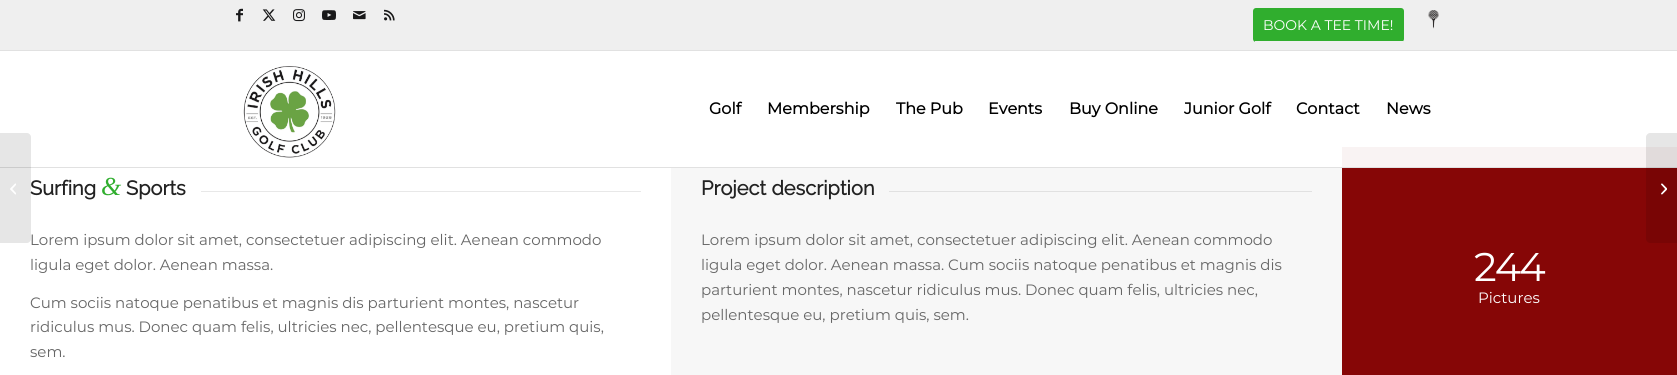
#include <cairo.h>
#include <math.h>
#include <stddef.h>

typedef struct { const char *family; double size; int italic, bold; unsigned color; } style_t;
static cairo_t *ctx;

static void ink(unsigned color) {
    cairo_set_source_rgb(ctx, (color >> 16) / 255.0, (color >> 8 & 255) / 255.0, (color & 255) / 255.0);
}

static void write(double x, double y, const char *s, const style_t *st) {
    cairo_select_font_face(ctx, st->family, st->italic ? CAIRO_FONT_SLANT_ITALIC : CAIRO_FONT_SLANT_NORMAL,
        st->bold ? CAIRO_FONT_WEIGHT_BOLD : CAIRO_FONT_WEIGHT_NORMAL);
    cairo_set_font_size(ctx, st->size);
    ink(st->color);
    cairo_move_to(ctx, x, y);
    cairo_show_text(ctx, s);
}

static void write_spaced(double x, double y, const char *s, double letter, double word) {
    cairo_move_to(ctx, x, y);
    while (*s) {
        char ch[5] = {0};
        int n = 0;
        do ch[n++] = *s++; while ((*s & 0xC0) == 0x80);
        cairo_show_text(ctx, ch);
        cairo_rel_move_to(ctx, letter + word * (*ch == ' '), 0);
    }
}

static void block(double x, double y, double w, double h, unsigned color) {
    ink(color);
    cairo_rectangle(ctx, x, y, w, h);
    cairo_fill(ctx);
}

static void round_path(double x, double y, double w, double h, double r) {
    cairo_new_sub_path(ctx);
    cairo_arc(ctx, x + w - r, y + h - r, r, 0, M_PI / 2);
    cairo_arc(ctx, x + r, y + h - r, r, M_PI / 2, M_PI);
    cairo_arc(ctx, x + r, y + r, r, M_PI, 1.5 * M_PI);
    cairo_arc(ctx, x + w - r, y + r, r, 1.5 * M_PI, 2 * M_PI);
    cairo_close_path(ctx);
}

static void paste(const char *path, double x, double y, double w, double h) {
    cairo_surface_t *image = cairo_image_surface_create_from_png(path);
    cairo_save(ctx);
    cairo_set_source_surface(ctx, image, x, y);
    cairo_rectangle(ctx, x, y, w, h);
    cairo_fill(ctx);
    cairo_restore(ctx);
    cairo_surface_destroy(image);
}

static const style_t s1 = {"Montserrat Thin", 14, 0, 0, 0xffffff};
static const style_t s2 = {"Montserrat", 16, 0, 1, 0x000000};
static const style_t s3 = {"Raleway", 20, 0, 1, 0x222222};
static const style_t s4 = {"Liberation Serif", 26, 1, 0, 0x30ae2e};
static const style_t s5 = {"Montserrat Thin", 15, 0, 0, 0x666666};
static const style_t s6 = {"Montserrat Thin", 15, 0, 0, 0xffffff};

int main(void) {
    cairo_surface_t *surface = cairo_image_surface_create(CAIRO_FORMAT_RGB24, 1677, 375);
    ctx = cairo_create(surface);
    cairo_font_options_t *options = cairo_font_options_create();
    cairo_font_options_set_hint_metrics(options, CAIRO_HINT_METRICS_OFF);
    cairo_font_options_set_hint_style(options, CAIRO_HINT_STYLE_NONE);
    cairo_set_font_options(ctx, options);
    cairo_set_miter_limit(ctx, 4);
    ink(0xffffff);
    cairo_paint(ctx);
    block(0, 0, 1677, 50, 0xefefef);
    block(0, 50, 1677, 1, 0xe1e1e1);
    paste("pic1.png", 236, 8, 7, 14);
    paste("pic2.png", 262, 9, 14, 12);
    paste("pic3.png", 293, 9, 12, 13);
    paste("pic4.png", 322, 10, 14, 10);
    paste("pic5.png", 353, 11, 13, 9);
    paste("pic6.png", 384, 9, 11, 12);
    ink(0x30ae2e);
    round_path(1253, 8, 151, 34, 3);
    cairo_fill(ctx);
    block(1255, 41, 148, 1, 0xefefef);
    write(1263, 30, "BOOK A TEE TIME!", &s1);
    paste("pic7.png", 1428, 10, 11, 19);
    block(0, 167, 1677, 1, 0xe1e1e1);
    paste("pic8.png", 243, 66, 93, 92);
    write(709, 114, "Golf", &s2);
    write(767, 114, "Membership", &s2);
    write(896, 114, "The Pub", &s2);
    write(988, 114, "Events", &s2);
    write(1069, 114, "Buy Online", &s2);
    write(1184, 114, "Junior Golf", &s2);
    write(1296, 114, "Contact", &s2);
    write(1386, 114, "News", &s2);
    cairo_set_source_rgba(ctx, 0, 0, 0, 0.1);
    cairo_new_path(ctx);
    cairo_move_to(ctx, 0, 133);
    cairo_line_to(ctx, 27, 133);
    cairo_curve_to(ctx, 29, 133, 31, 135, 31, 137);
    cairo_line_to(ctx, 31, 239);
    cairo_curve_to(ctx, 31, 241, 29, 243, 27, 243);
    cairo_line_to(ctx, 0, 243);
    cairo_close_path(ctx);
    cairo_fill(ctx);
    paste("pic9.png", 10, 183, 6, 12);
    write(30, 195, "Surfing", &s3);
    write(101, 195, "&", &s4);
    write(126, 195, "Sports", &s3);
    block(201, 191, 440, 1, 0xe8e8e8);
    write(30, 245, "Lorem ipsum dolor sit amet, consectetuer adipiscing elit. Aenean commodo", &s5);
    write(30, 270, "ligula eget dolor. Aenean massa.", &s5);
    write(30, 308, "Cum sociis natoque penatibus et magnis dis parturient montes, nascetur", &s5);
    write(30, 332, "ridiculus mus. Donec quam felis, ultricies nec, pellentesque eu, pretium quis,", &s5);
    write(30, 357, "sem.", &s5);
    block(671, 168, 671, 207, 0xf7f7f7);
    write(701, 195, "Project description", &s3);
    block(889, 191, 423, 1, 0xe1e1e1);
    write(701, 245, "Lorem ipsum dolor sit amet, consectetuer adipiscing elit. Aenean commodo", &s5);
    write(701, 270, "ligula eget dolor. Aenean massa. Cum sociis natoque penatibus et magnis dis", &s5);
    write(701, 295, "parturient montes, nascetur ridiculus mus. Donec quam felis, ultricies nec,", &s5);
    write(701, 320, "pellentesque eu, pretium quis, sem.", &s5);
    block(1342, 168, 335, 207, 0x860606);
    block(1342, 147, 335, 20, 0xf9f3f3);
    cairo_set_font_size(ctx, 40);
    ink(0xffffff);
    write_spaced(1474, 281, "244", -2, 0);
    write(1478, 303, "Pictures", &s6);
    cairo_set_source_rgba(ctx, 0, 0, 0, 0.1);
    cairo_new_path(ctx);
    cairo_move_to(ctx, 1650, 133);
    cairo_line_to(ctx, 1677, 133);
    cairo_line_to(ctx, 1677, 243);
    cairo_line_to(ctx, 1650, 243);
    cairo_curve_to(ctx, 1648, 243, 1646, 241, 1646, 239);
    cairo_line_to(ctx, 1646, 137);
    cairo_curve_to(ctx, 1646, 135, 1648, 133, 1650, 133);
    cairo_close_path(ctx);
    cairo_fill(ctx);
    paste("pic10.png", 1661, 183, 6, 12);
    cairo_surface_write_to_png(surface, "screenshot.png");
    cairo_font_options_destroy(options);
    cairo_destroy(ctx);
    cairo_surface_destroy(surface);
    return 0;
}
